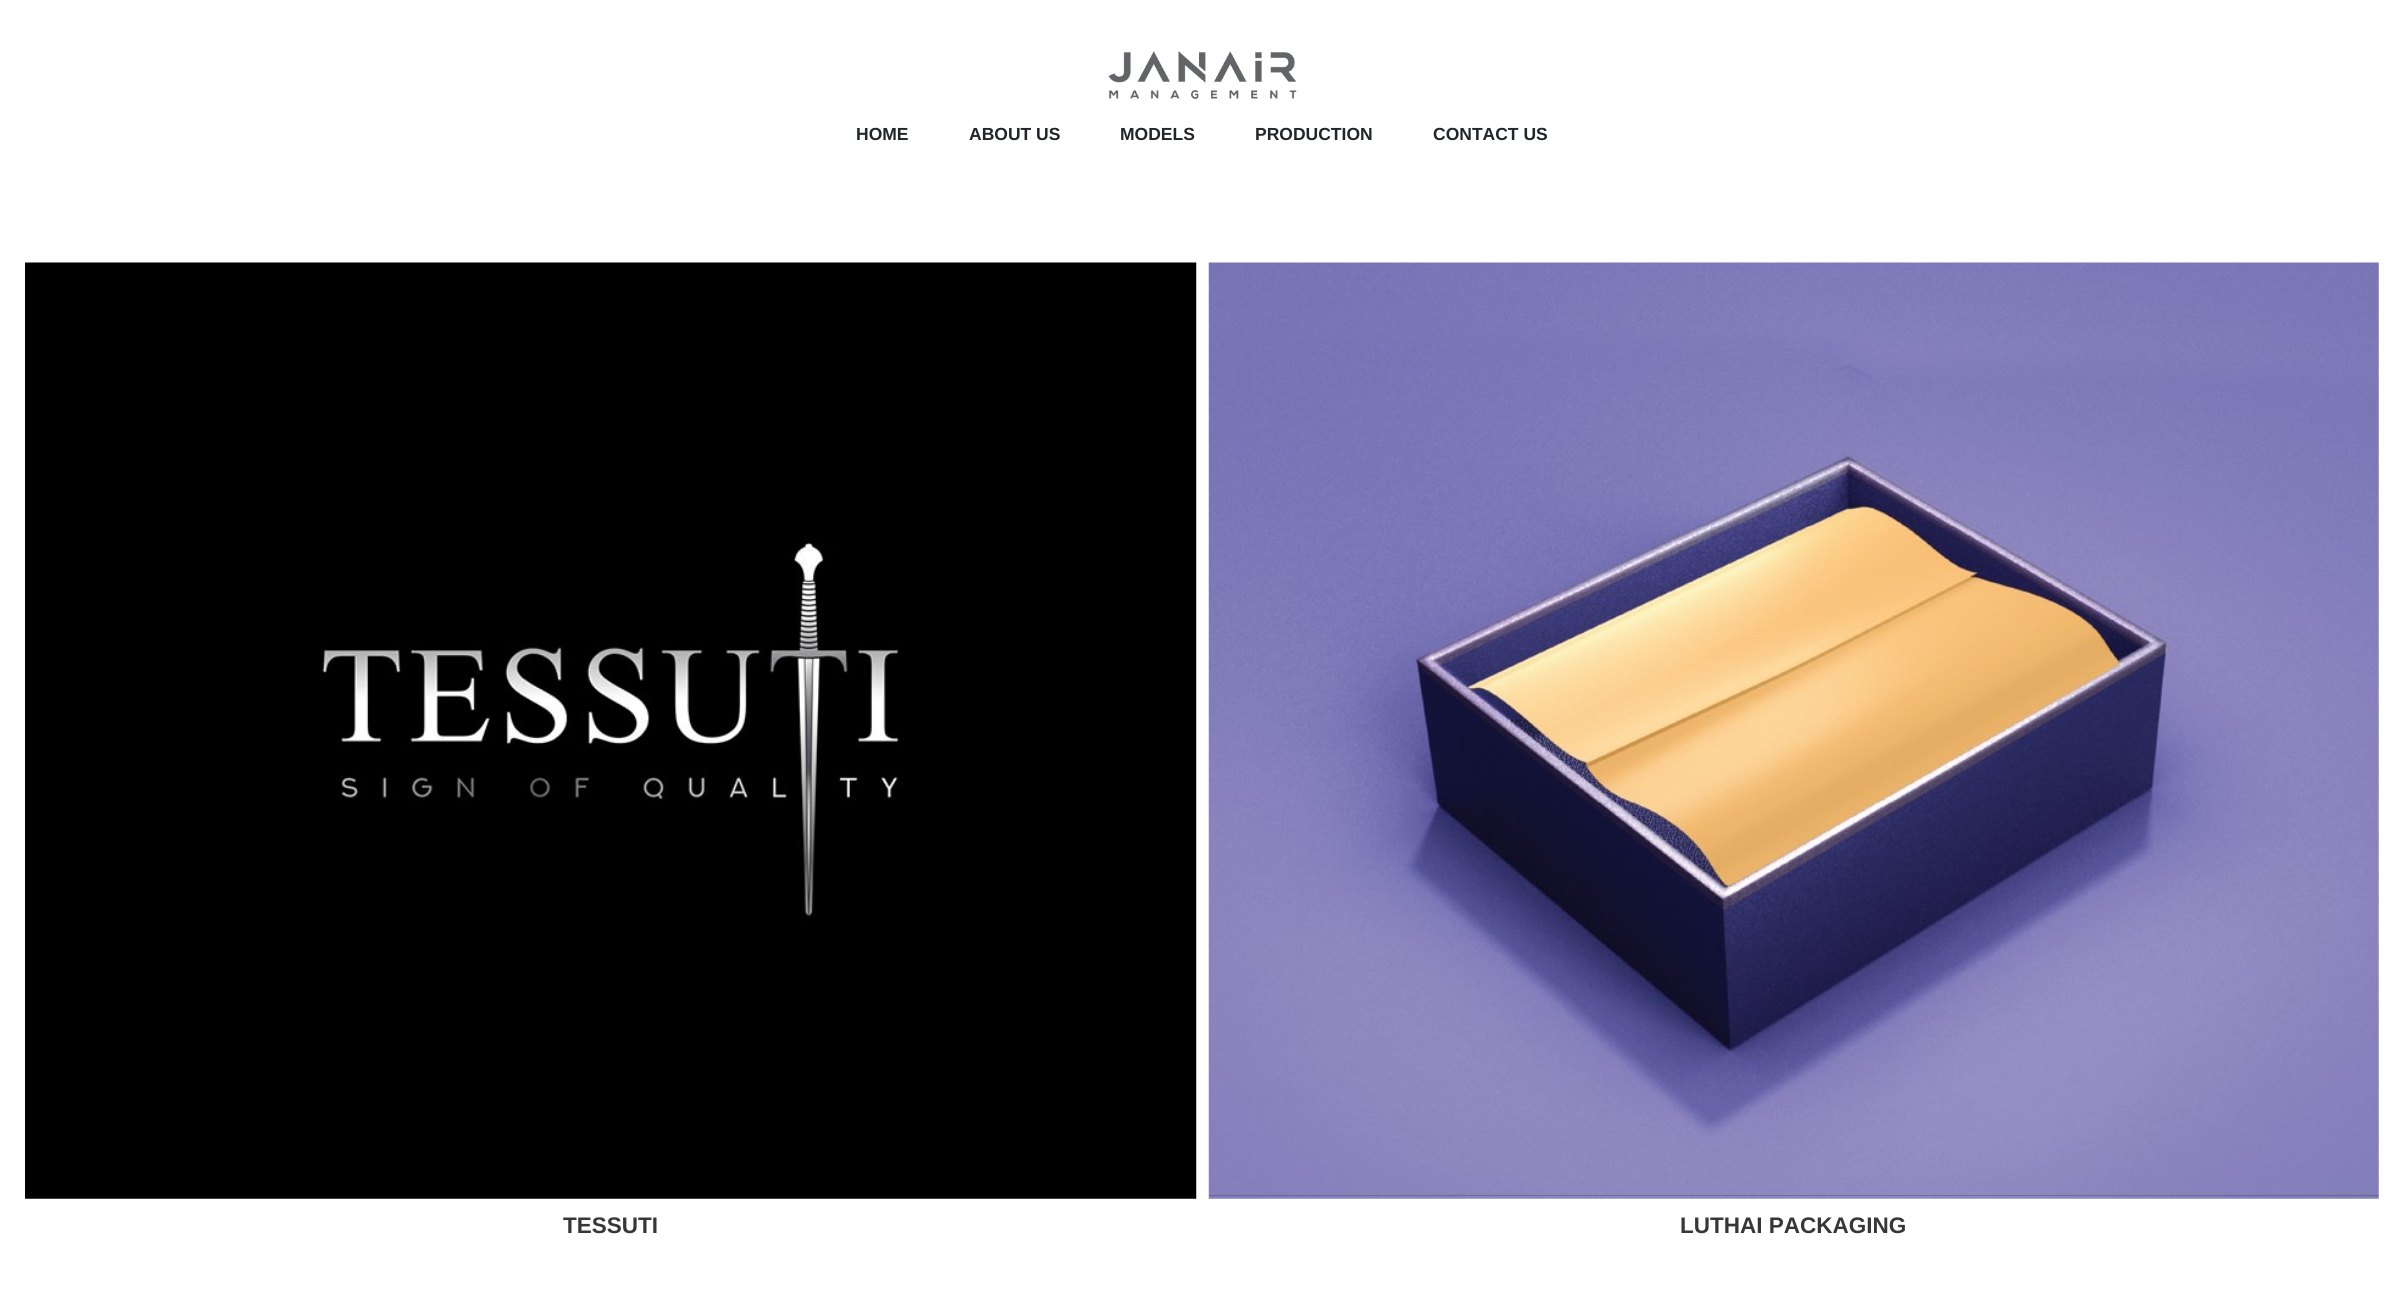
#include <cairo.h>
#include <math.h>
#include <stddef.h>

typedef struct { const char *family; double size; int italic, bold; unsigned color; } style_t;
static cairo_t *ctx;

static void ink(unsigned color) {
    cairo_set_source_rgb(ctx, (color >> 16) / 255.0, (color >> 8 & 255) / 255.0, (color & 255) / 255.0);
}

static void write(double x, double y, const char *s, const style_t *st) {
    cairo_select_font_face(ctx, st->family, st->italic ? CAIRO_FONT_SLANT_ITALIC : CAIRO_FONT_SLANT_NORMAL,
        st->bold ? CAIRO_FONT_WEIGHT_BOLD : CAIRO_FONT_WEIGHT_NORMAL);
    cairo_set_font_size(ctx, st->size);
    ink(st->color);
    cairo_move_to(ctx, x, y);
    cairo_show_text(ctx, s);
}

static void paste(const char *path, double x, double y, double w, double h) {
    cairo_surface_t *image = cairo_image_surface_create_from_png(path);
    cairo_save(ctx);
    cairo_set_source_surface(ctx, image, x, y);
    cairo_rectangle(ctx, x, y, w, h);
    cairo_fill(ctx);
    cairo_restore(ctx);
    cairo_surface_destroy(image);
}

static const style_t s1 = {"Liberation Sans", 17.5, 0, 1, 0x22262a};
static const style_t s2 = {"Liberation Sans", 22.5, 0, 1, 0x373737};

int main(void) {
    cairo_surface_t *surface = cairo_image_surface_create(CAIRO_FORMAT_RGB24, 2403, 1290);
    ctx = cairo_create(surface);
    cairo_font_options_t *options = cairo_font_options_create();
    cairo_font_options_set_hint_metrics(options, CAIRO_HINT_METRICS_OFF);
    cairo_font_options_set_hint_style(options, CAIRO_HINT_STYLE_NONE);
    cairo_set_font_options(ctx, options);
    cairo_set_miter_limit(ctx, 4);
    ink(0xffffff);
    cairo_paint(ctx);
    paste("pic1.png", 1108, 51, 189, 48);
    write(856, 140, "HOME", &s1);
    write(969, 140, "ABOUT US", &s1);
    write(1120, 140, "MODELS", &s1);
    write(1255, 140, "PRODUCTION", &s1);
    write(1433, 140, "CONTACT US", &s1);
    paste("pic2.png", 25, 262, 1172, 937);
    write(563, 1233, "TESSUTI", &s2);
    paste("pic3.png", 1208, 262, 1171, 937);
    cairo_set_source_rgba(ctx, 0, 0, 0, 0.2);
    cairo_rectangle(ctx, 1209, 1195, 1170, 1);
    cairo_fill(ctx);
    write(1680, 1233, "LUTHAI PACKAGING", &s2);
    cairo_surface_write_to_png(surface, "screenshot.png");
    cairo_font_options_destroy(options);
    cairo_destroy(ctx);
    cairo_surface_destroy(surface);
    return 0;
}
